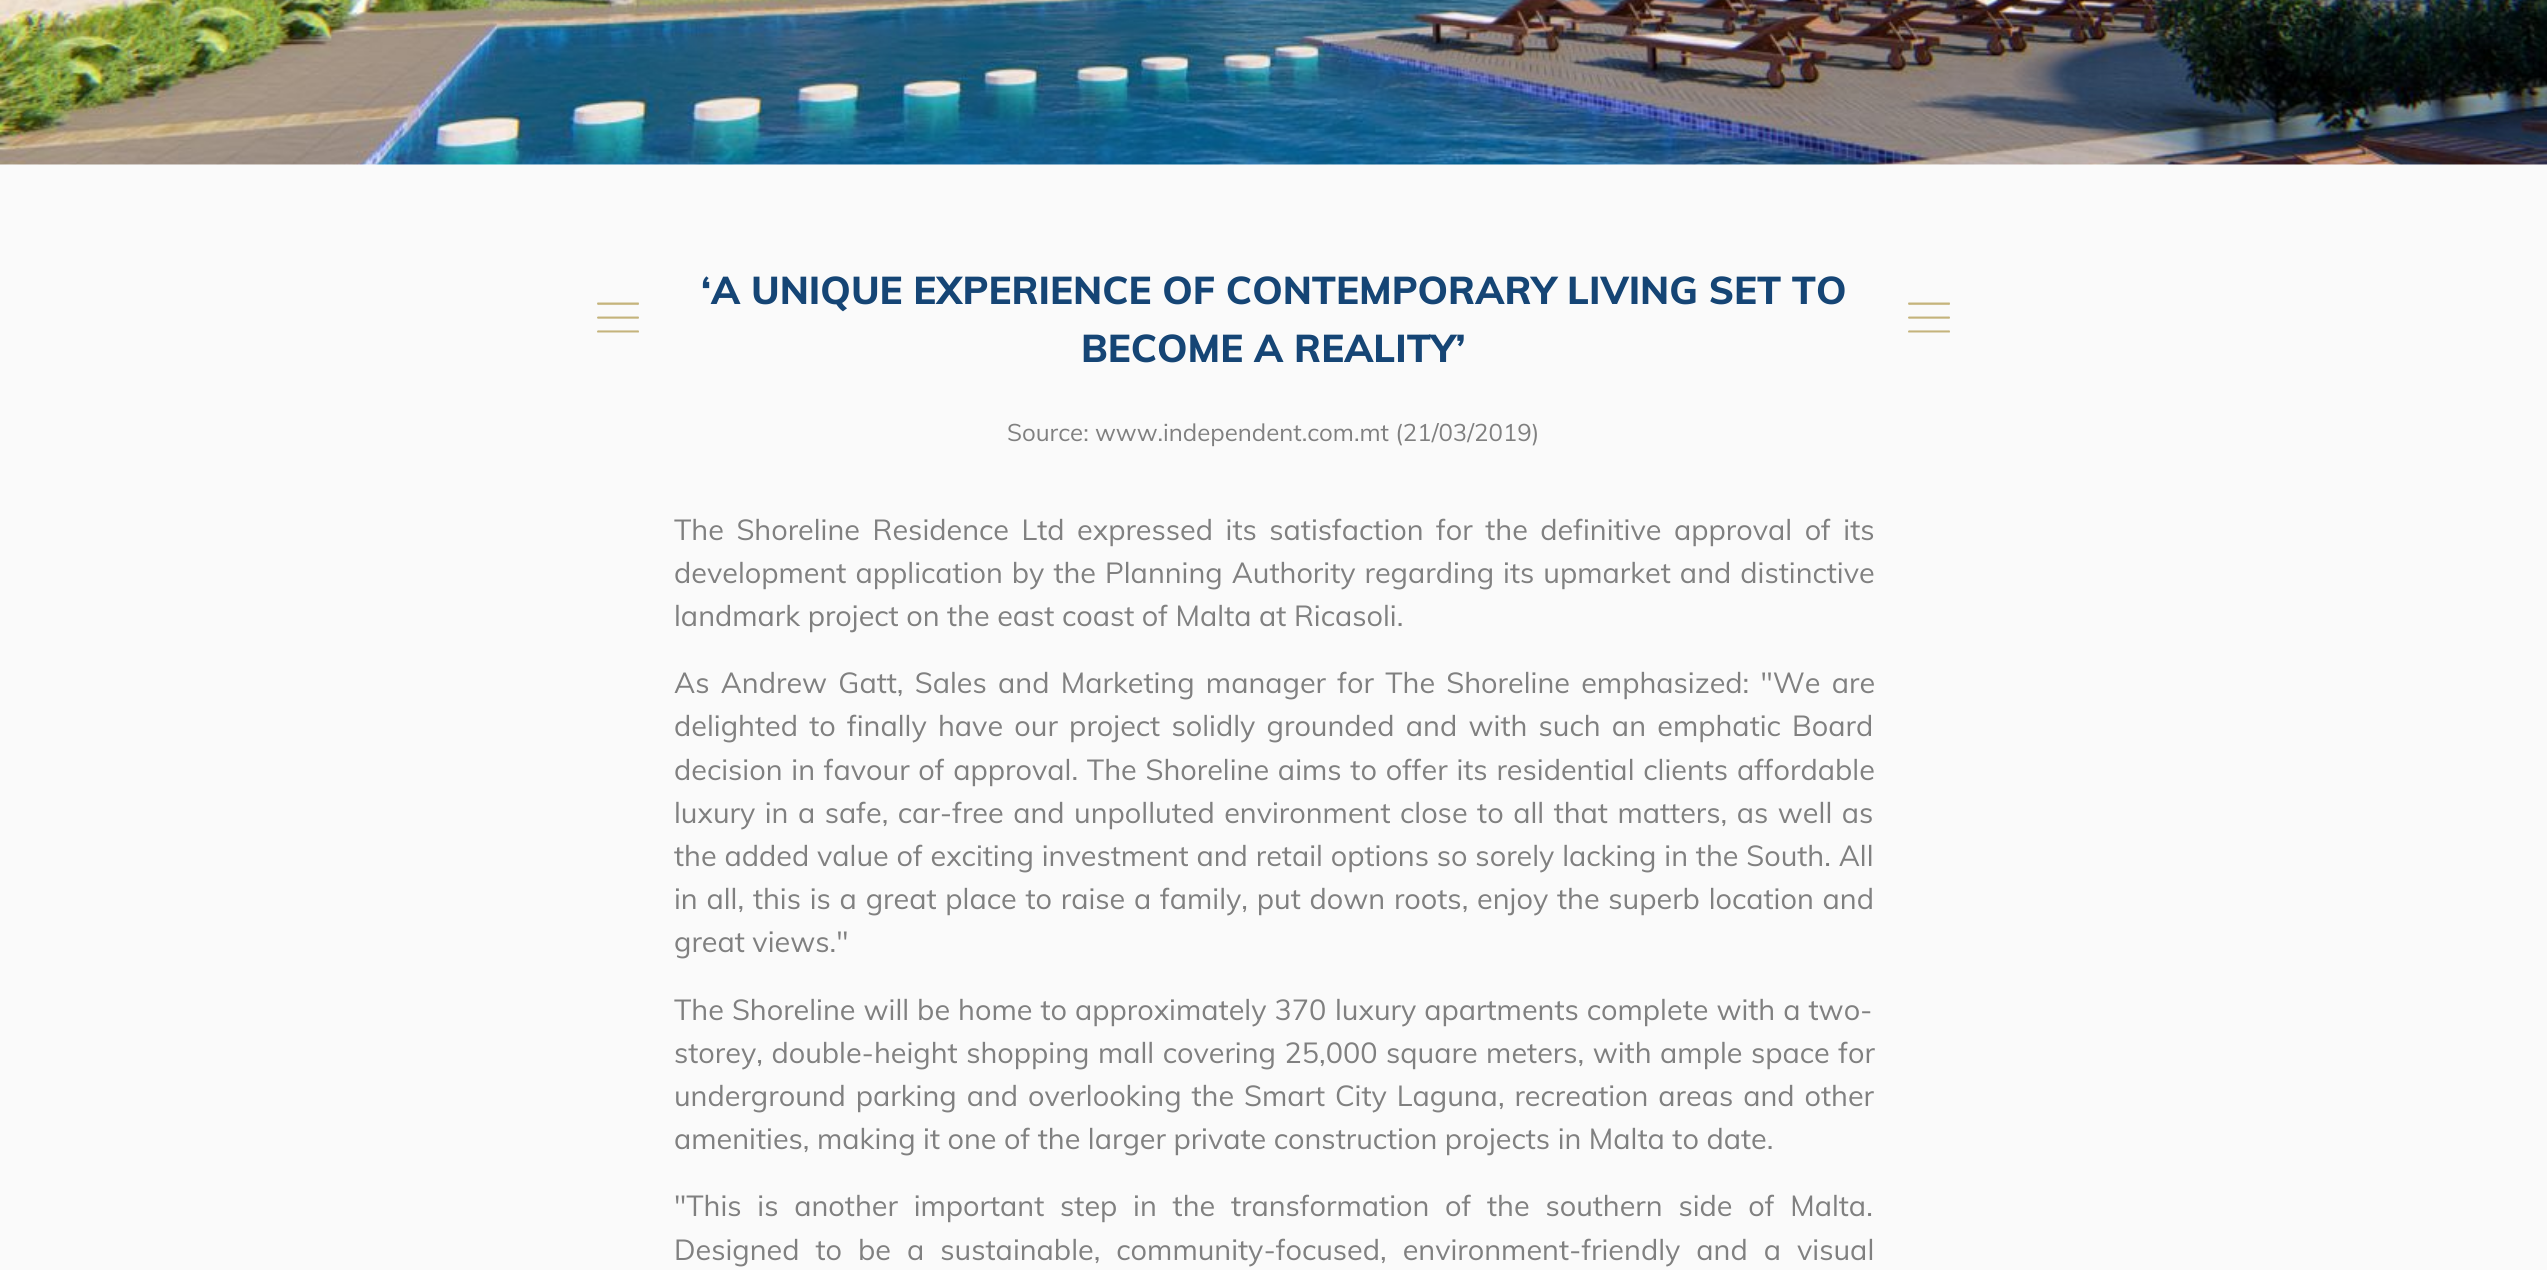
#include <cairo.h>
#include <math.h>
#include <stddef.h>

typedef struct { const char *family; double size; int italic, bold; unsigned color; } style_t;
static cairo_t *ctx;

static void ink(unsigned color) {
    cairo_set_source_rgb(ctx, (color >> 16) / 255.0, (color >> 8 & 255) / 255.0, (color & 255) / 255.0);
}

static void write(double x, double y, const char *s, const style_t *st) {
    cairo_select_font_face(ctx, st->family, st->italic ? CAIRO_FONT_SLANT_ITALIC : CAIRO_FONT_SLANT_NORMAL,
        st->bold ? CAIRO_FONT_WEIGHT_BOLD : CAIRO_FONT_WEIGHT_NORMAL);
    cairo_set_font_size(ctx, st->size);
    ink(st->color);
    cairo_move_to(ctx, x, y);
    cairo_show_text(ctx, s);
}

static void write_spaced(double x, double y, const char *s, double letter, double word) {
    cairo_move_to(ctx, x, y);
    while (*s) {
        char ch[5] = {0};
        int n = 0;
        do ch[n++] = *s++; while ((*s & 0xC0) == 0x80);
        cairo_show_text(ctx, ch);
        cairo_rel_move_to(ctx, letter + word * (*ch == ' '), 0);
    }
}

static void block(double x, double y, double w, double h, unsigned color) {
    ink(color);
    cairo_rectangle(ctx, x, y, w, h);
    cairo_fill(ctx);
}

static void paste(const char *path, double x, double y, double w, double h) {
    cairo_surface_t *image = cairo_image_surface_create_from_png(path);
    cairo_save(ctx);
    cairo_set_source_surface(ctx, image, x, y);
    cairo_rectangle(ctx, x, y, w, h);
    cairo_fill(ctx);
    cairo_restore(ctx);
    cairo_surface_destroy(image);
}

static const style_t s1 = {"Muli ExtraBold", 38.4, 0, 0, 0x154575};
static const style_t s2 = {"Muli", 24, 0, 0, 0x808080};
static const style_t s3 = {"Muli", 28.8, 0, 0, 0x808080};

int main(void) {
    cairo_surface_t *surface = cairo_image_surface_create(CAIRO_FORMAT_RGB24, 2547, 1270);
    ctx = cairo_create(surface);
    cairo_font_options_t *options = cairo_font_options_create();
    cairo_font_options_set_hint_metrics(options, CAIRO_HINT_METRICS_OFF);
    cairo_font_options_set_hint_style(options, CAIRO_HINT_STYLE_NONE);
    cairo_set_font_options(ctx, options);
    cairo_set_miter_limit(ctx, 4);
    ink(0xffffff);
    cairo_paint(ctx);
    paste("pic1.png", 0, 0, 2547, 165);
    block(0, 165, 2547, 1105, 0xfafafa);
    write(701, 304, "‘A UNIQUE EXPERIENCE OF CONTEMPORARY LIVING SET TO", &s1);
    paste("pic2.png", 597, 302, 42, 31);
    paste("pic2.png", 1908, 302, 42, 31);
    write(1081, 362, "BECOME A REALITY’", &s1);
    write(1007, 441, "Source: www.independent.com.mt (21/03/2019)", &s2);
    cairo_set_font_size(ctx, 28.8);
    write_spaced(674, 540, "The Shoreline Residence Ltd expressed its satisfaction for the definitive approval of its", 0, 5);
    write_spaced(674, 583, "development application by the Planning Authority regarding its upmarket and distinctive", 0, 1.5);
    write(674, 626, "landmark project on the east coast of Malta at Ricasoli.", &s3);
    write_spaced(674, 693, "As Andrew Gatt, Sales and Marketing manager for The Shoreline emphasized: \"We are", 0, 3.75);
    write_spaced(674, 736, "delighted to finally have our project solidly grounded and with such an emphatic Board", 0, 3.75);
    write_spaced(674, 780, "decision in favour of approval. The Shoreline aims to offer its residential clients affordable", 0, 1.25);
    write_spaced(674, 823, "luxury in a safe, car-free and unpolluted environment close to all that matters, as well as", 0, 2);
    write_spaced(674, 866, "the added value of exciting investment and retail options so sorely lacking in the South. All", 0, 0.3);
    write_spaced(674, 909, "in all, this is a great place to raise a family, put down roots, enjoy the superb location and", 0, 1.25);
    write(674, 952, "great views.\"", &s3);
    write_spaced(674, 1020, "The Shoreline will be home to approximately 370", 0, 0.5);
    write_spaced(1335, 1020, "luxury apartments complete with a two-", 0, 0.5);
    write_spaced(674, 1063, "storey, double-height shopping mall covering 25,000 square meters, with ample space for", 0, 1);
    write_spaced(674, 1106, "underground parking and overlooking the Smart City Laguna, recreation areas and other", 0, 2.4);
    write(674, 1149, "amenities, making it one of the larger private construction projects in Malta to date.", &s3);
    write_spaced(674, 1216, "\"This is another important step in the transformation of the southern side of Malta.", 0, 8.25);
    write_spaced(674, 1260, "Designed to be a sustainable, community-focused, environment-friendly and a visual", 0, 8.5);
    cairo_surface_write_to_png(surface, "screenshot.png");
    cairo_font_options_destroy(options);
    cairo_destroy(ctx);
    cairo_surface_destroy(surface);
    return 0;
}
